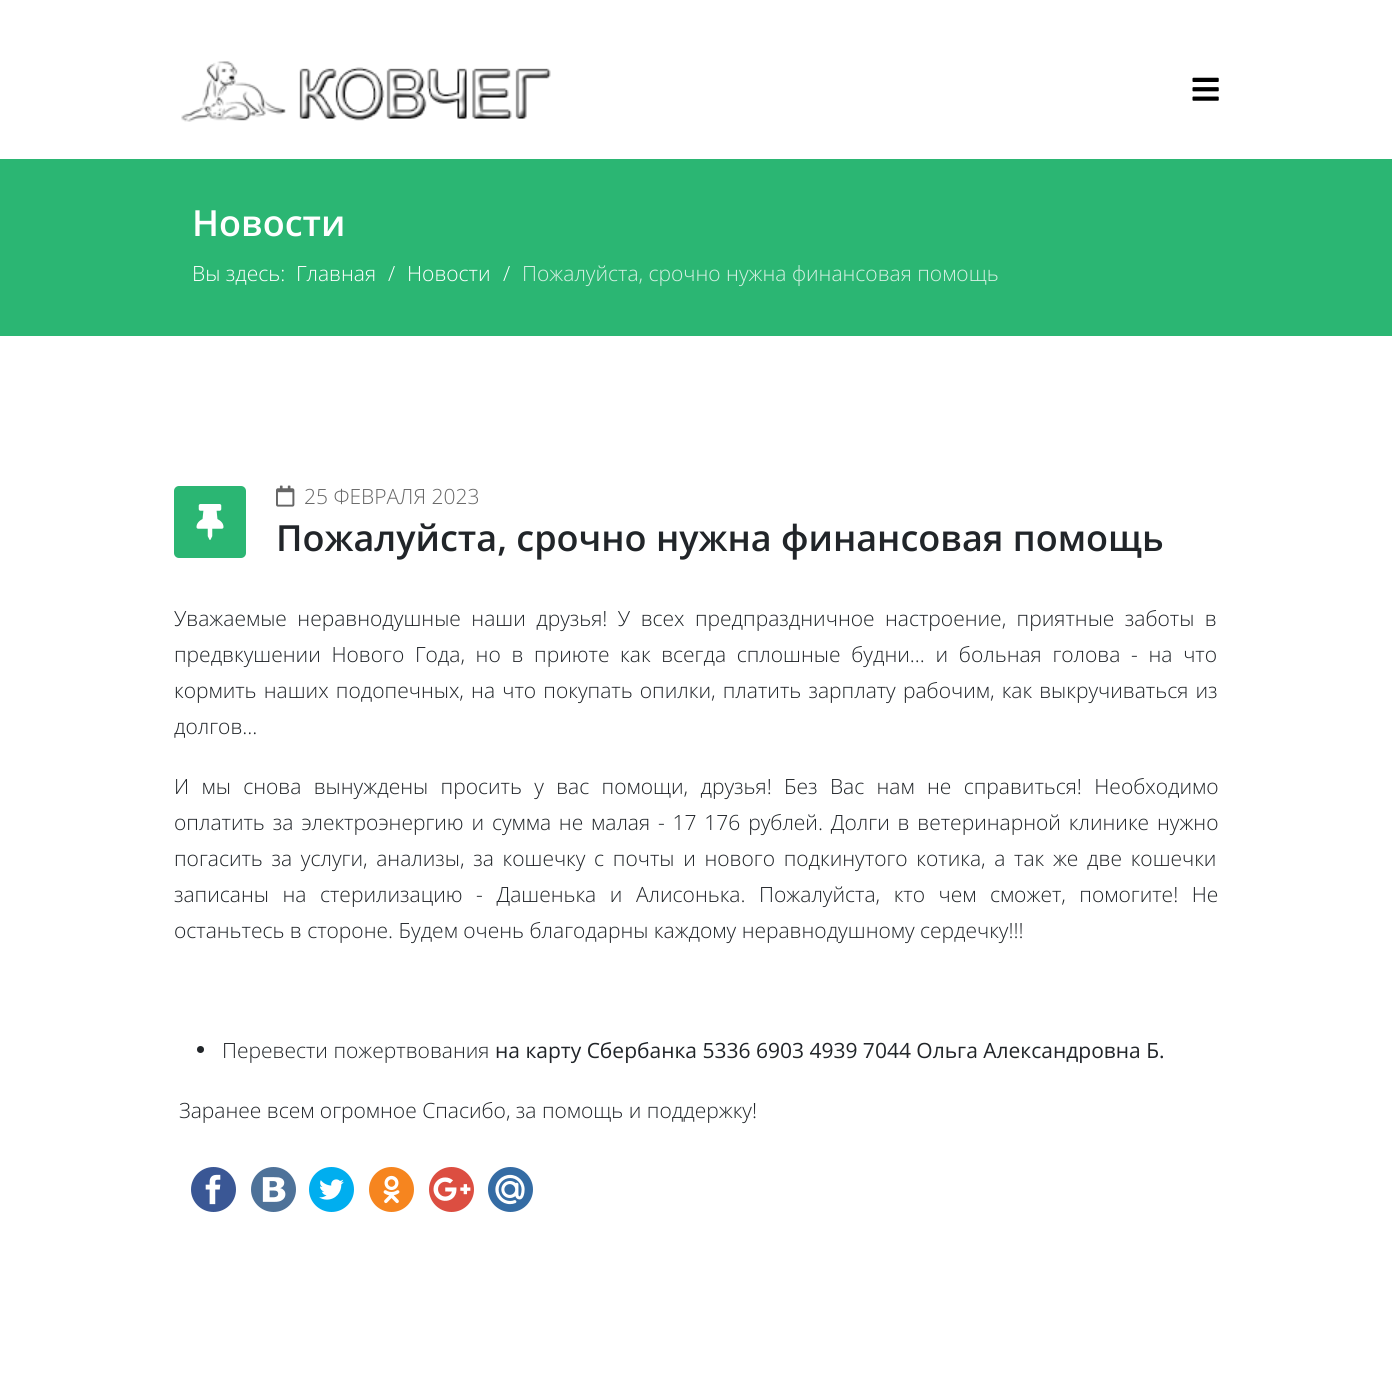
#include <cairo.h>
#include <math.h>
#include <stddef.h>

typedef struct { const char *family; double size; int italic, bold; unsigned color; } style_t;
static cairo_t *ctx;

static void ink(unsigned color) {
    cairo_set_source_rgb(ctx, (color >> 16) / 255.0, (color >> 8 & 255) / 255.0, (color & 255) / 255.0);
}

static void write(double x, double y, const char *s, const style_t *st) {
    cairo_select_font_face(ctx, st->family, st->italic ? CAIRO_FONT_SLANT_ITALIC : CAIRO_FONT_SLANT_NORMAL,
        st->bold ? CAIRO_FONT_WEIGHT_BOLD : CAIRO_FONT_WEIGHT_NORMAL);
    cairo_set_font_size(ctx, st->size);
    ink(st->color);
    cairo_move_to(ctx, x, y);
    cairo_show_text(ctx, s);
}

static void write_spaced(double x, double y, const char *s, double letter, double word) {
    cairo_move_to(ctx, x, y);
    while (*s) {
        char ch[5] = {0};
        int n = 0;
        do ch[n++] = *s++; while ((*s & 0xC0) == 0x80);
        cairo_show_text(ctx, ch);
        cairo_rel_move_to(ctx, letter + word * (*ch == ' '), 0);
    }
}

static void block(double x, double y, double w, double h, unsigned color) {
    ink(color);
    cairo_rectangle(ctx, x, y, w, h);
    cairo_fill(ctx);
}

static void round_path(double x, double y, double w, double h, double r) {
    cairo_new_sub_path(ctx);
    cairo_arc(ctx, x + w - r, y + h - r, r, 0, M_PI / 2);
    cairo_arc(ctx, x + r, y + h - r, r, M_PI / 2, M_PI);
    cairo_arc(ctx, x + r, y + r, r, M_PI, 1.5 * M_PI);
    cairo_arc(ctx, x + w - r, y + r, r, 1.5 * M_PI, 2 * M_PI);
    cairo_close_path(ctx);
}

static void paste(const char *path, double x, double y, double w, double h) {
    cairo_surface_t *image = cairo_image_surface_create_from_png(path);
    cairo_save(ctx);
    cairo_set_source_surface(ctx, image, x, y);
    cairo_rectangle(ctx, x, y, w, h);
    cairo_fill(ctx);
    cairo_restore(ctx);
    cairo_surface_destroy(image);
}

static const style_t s1 = {"Open Sans SemiBold", 36, 0, 0, 0xffffff};
static const style_t s2 = {"Open Sans Light", 21, 0, 0, 0xffffff};
static const style_t s3 = {"Open Sans Light", 21, 0, 0, 0xd5f0e3};
static const style_t s4 = {"Open Sans Light", 21, 0, 0, 0x666666};
static const style_t s5 = {"Open Sans SemiBold", 36, 0, 0, 0x212529};
static const style_t s6 = {"Open Sans Light", 21, 0, 0, 0x212529};
static const style_t s7 = {"Open Sans", 21, 0, 0, 0x212529};

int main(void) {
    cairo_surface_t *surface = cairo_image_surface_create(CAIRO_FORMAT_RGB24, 1392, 1389);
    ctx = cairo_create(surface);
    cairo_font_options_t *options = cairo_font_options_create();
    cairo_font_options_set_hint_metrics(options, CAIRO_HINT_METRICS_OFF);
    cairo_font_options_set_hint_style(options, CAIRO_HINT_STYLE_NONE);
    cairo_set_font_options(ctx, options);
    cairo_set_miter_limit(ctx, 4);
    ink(0xffffff);
    cairo_paint(ctx);
    paste("pic1.png", 181, 61, 370, 61);
    paste("pic2.png", 1192, 77, 27, 24);
    block(0, 159, 1392, 177, 0x2bb673);
    write(192, 236, "Новости", &s1);
    write(192, 281, "Вы здесь:", &s2);
    write(296, 281, "Главная", &s2);
    write(388, 281, "/", &s2);
    write(407, 281, "Новости", &s2);
    write(503, 281, "/", &s2);
    write(522, 281, "Пожалуйста, срочно нужна финансовая помощь", &s3);
    ink(0x2bb673);
    round_path(174, 486, 72, 72, 5);
    cairo_fill(ctx);
    paste("pic3.png", 196, 504, 28, 36);
    paste("pic4.png", 276, 485, 19, 22);
    write(304, 504, "25 ФЕВРАЛЯ 2023", &s4);
    write(276, 551, "Пожалуйста, срочно нужна финансовая помощь", &s5);
    cairo_select_font_face(ctx, "Open Sans Light", CAIRO_FONT_SLANT_NORMAL, CAIRO_FONT_WEIGHT_NORMAL);
    cairo_set_font_size(ctx, 21);
    write_spaced(174, 626, "Уважаемые неравнодушные наши друзья! У всех предпраздничное настроение, приятные заботы в", 0, 5);
    write_spaced(174, 662, "предвкушении Нового Года, но в приюте как всегда сплошные будни... и больная голова - на что", 0, 5.25);
    write_spaced(174, 698, "кормить наших подопечных, на что покупать опилки, платить зарплату рабочим, как выкручиваться из", 0, 1.75);
    write(174, 734, "долгов...", &s6);
    write_spaced(174, 794, "И мы снова вынуждены просить у вас помощи, друзья! Без Вас нам не справиться! Необходимо", 0, 6.9);
    write_spaced(174, 830, "оплатить за электроэнергию и сумма не малая - 17 176 рублей. Долги в ветеринарной клинике нужно", 0, 2.4);
    write_spaced(174, 866, "погасить за услуги, анализы, за кошечку с почты и нового подкинутого котика, а так же две кошечки", 0, 3.25);
    write_spaced(174, 902, "записаны на стерилизацию - Дашенька и Алисонька. Пожалуйста, кто чем сможет, помогите! Не", 0, 8.1);
    write(174, 938, "останьтесь в стороне. Будем очень благодарны каждому неравнодушному сердечку!!!", &s6);
    cairo_new_path(ctx);
    cairo_arc(ctx, 200.5, 1049.5, 3.5, 0, 2 * M_PI);
    cairo_fill(ctx);
    write(222, 1058, "Перевести пожертвования", &s6);
    write(495, 1058, "на карту Сбербанка 5336 6903 4939 7044 Ольга Александровна Б.", &s7);
    write(179, 1118, "Заранее всем огромное Спасибо, за помощь и поддержку!", &s6);
    ink(0x3a5795);
    cairo_new_path(ctx);
    cairo_arc(ctx, 213.5, 1189.5, 22.5, 0, 2 * M_PI);
    cairo_fill(ctx);
    paste("pic5.png", 205, 1174, 16, 31);
    ink(0x4e7299);
    cairo_arc(ctx, 273.5, 1189.5, 22.5, 0, 2 * M_PI);
    cairo_fill(ctx);
    paste("pic6.png", 262, 1177, 24, 25);
    ink(0x00aeef);
    cairo_arc(ctx, 331.5, 1189.5, 22.5, 0, 2 * M_PI);
    cairo_fill(ctx);
    paste("pic7.png", 319, 1179, 25, 21);
    ink(0xf6851f);
    cairo_arc(ctx, 391.5, 1189.5, 22.5, 0, 2 * M_PI);
    cairo_fill(ctx);
    paste("pic8.png", 383, 1175, 17, 29);
    ink(0xdc4e41);
    cairo_arc(ctx, 451.5, 1189.5, 22.5, 0, 2 * M_PI);
    cairo_fill(ctx);
    paste("pic9.png", 433, 1177, 38, 24);
    ink(0x356ca4);
    cairo_arc(ctx, 510.5, 1189.5, 22.5, 0, 2 * M_PI);
    cairo_fill(ctx);
    paste("pic10.png", 495, 1174, 30, 31);
    cairo_surface_write_to_png(surface, "screenshot.png");
    cairo_font_options_destroy(options);
    cairo_destroy(ctx);
    cairo_surface_destroy(surface);
    return 0;
}
